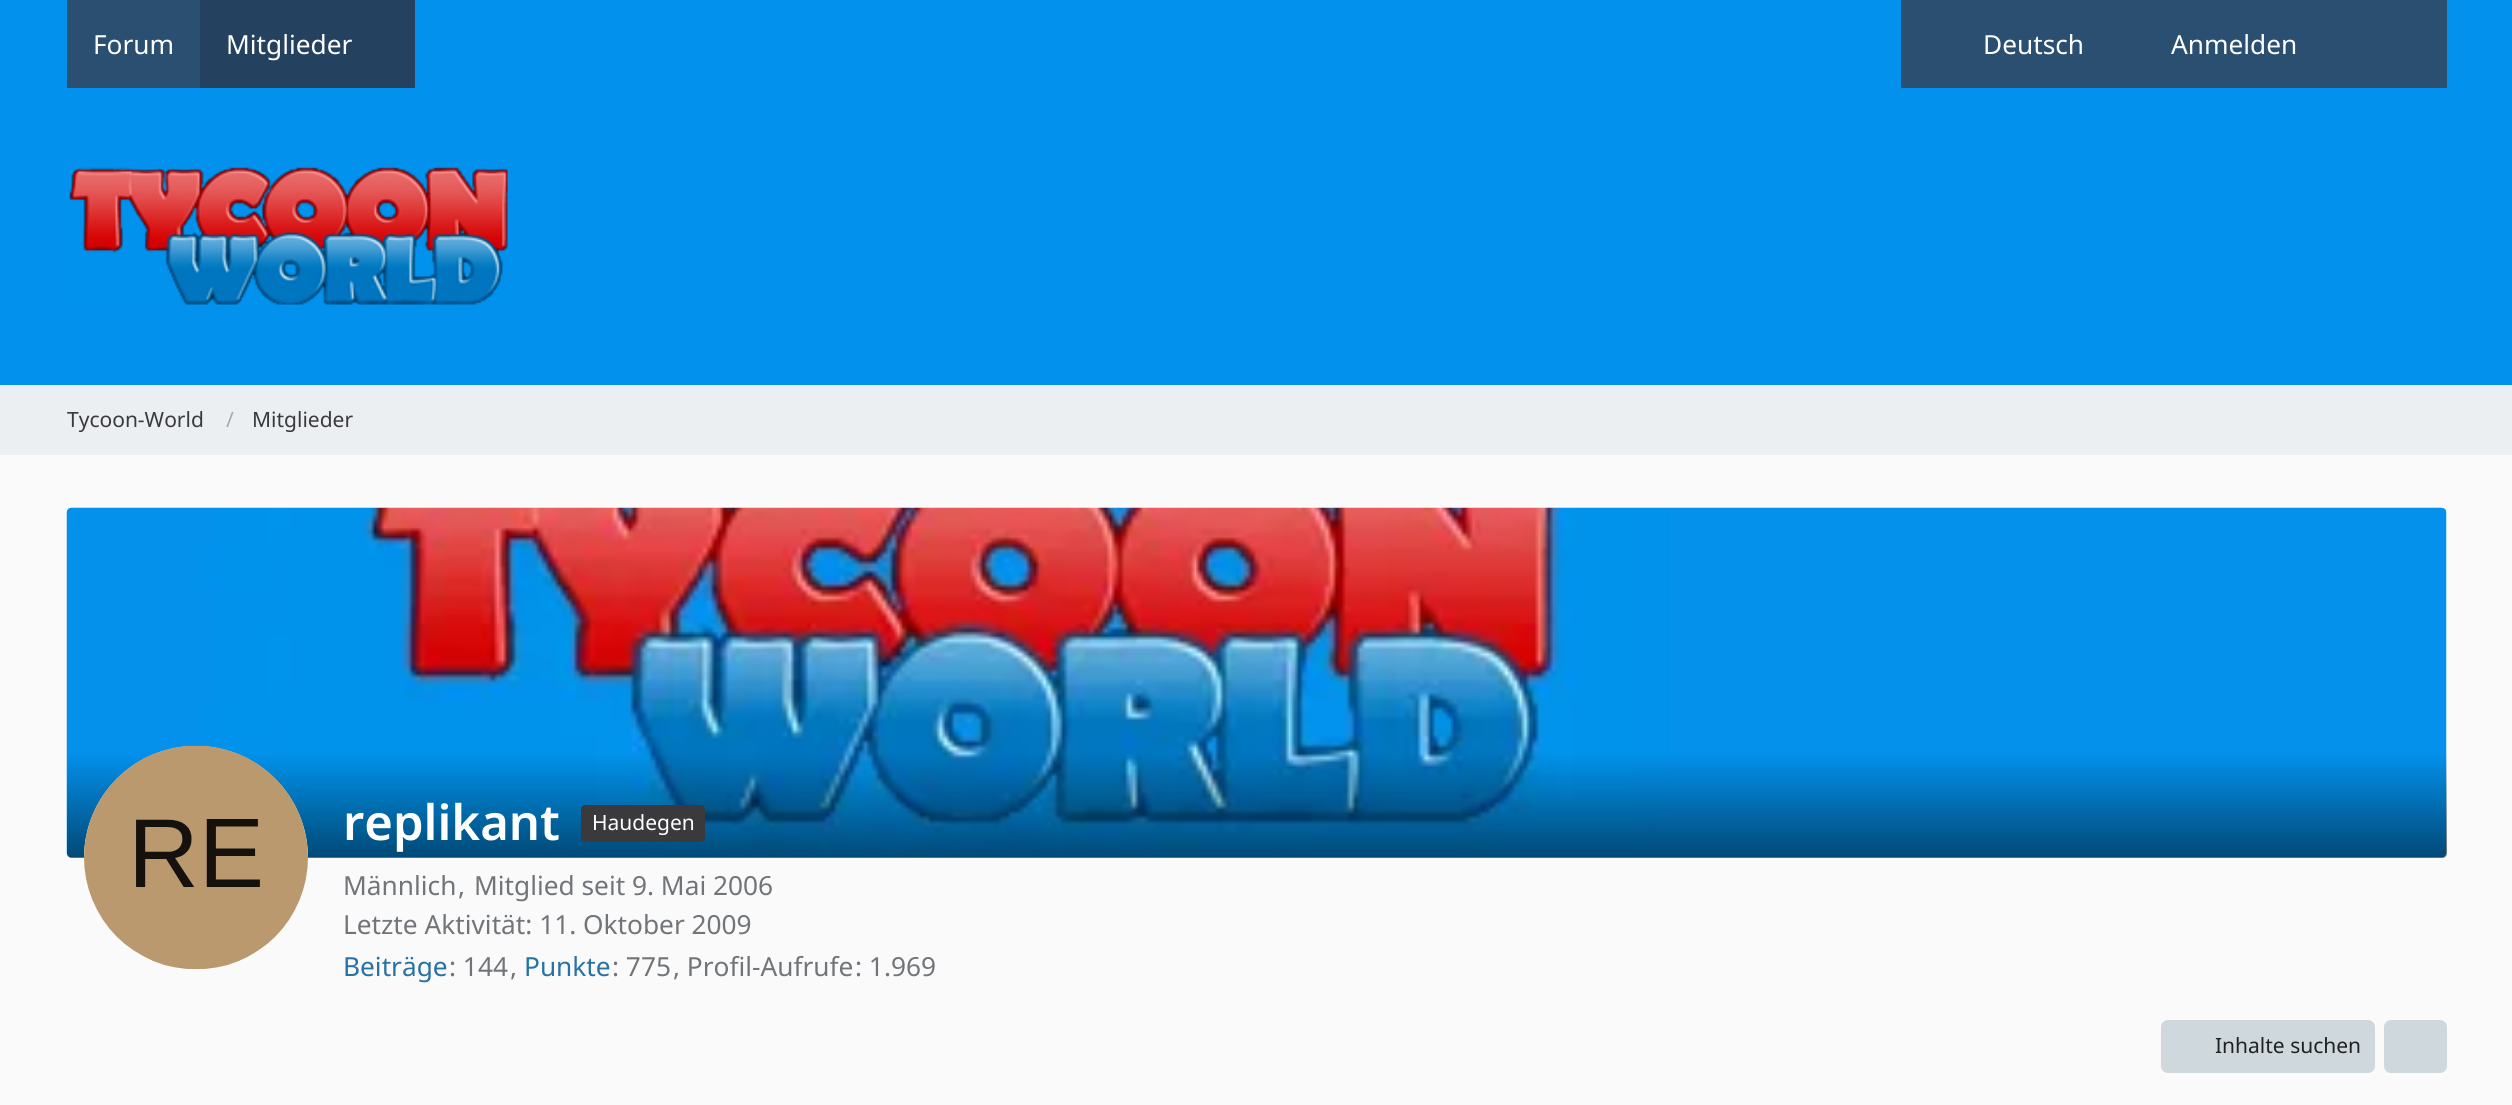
#include <cairo.h>
#include <math.h>
#include <stddef.h>

typedef struct { const char *family; double size; int italic, bold; unsigned color; } style_t;
static cairo_t *ctx;

static void ink(unsigned color) {
    cairo_set_source_rgb(ctx, (color >> 16) / 255.0, (color >> 8 & 255) / 255.0, (color & 255) / 255.0);
}

static void write(double x, double y, const char *s, const style_t *st) {
    cairo_select_font_face(ctx, st->family, st->italic ? CAIRO_FONT_SLANT_ITALIC : CAIRO_FONT_SLANT_NORMAL,
        st->bold ? CAIRO_FONT_WEIGHT_BOLD : CAIRO_FONT_WEIGHT_NORMAL);
    cairo_set_font_size(ctx, st->size);
    ink(st->color);
    cairo_move_to(ctx, x, y);
    cairo_show_text(ctx, s);
}

static void block(double x, double y, double w, double h, unsigned color) {
    ink(color);
    cairo_rectangle(ctx, x, y, w, h);
    cairo_fill(ctx);
}

static void round_path(double x, double y, double w, double h, double r) {
    cairo_new_sub_path(ctx);
    cairo_arc(ctx, x + w - r, y + h - r, r, 0, M_PI / 2);
    cairo_arc(ctx, x + r, y + h - r, r, M_PI / 2, M_PI);
    cairo_arc(ctx, x + r, y + r, r, M_PI, 1.5 * M_PI);
    cairo_arc(ctx, x + w - r, y + r, r, 1.5 * M_PI, 2 * M_PI);
    cairo_close_path(ctx);
}

static void paste(const char *path, double x, double y, double w, double h) {
    cairo_surface_t *image = cairo_image_surface_create_from_png(path);
    cairo_save(ctx);
    cairo_set_source_surface(ctx, image, x, y);
    cairo_rectangle(ctx, x, y, w, h);
    cairo_fill(ctx);
    cairo_restore(ctx);
    cairo_surface_destroy(image);
}

static const style_t s1 = {"Noto Sans", 26.25, 0, 0, 0xffffff};
static const style_t s2 = {"Noto Sans", 21, 0, 0, 0x3a3a3d};
static const style_t s3 = {"Noto Sans", 21, 0, 0, 0xaaaaaa};
static const style_t s4 = {"Noto Sans SemiBold", 49, 0, 0, 0xffffff};
static const style_t s5 = {"Noto Sans", 21, 0, 0, 0xffffff};
static const style_t s6 = {"Noto Sans", 26.25, 0, 0, 0x71757a};
static const style_t s7 = {"Noto Sans", 26.25, 0, 0, 0x2671a6};
static const style_t s8 = {"Noto Sans", 21, 0, 0, 0x212121};

int main(void) {
    cairo_surface_t *surface = cairo_image_surface_create(CAIRO_FORMAT_RGB24, 2512, 1105);
    ctx = cairo_create(surface);
    cairo_font_options_t *options = cairo_font_options_create();
    cairo_font_options_set_hint_metrics(options, CAIRO_HINT_METRICS_OFF);
    cairo_font_options_set_hint_style(options, CAIRO_HINT_STYLE_NONE);
    cairo_set_font_options(ctx, options);
    cairo_set_miter_limit(ctx, 4);
    cairo_pattern_t *gradient;
    ink(0xfafafa);
    cairo_paint(ctx);
    block(0, 0, 2512, 385, 0x0291ed);
    block(67, 0, 133, 88, 0x2b4f71);
    write(93, 54, "Forum", &s1);
    block(200, 0, 215, 88, 0x24425f);
    write(226, 54, "Mitglieder", &s1);
    block(1901, 0, 546, 88, 0x2b4f71);
    write(1983, 54, "Deutsch", &s1);
    write(2171, 54, "Anmelden", &s1);
    paste("pic1.png", 69, 167, 439, 138);
    block(0, 385, 2512, 70, 0xeceff1);
    write(67, 427, "Tycoon-World", &s2);
    write(226, 427, "/", &s3);
    write(252, 427, "Mitglieder", &s2);
    paste("pic2.png", 66, 507, 2381, 351);
    gradient = cairo_pattern_create_linear(1257, 507, 1257, 858);
    cairo_pattern_add_color_stop_rgba(gradient, 0.7, 0, 0, 0, 0);
    cairo_pattern_add_color_stop_rgba(gradient, 1, 0, 0, 0, 0.5);
    cairo_set_source(ctx, gradient);
    cairo_pattern_destroy(gradient);
    cairo_new_path(ctx);
    cairo_move_to(ctx, 67, 508);
    cairo_line_to(ctx, 2447, 508);
    cairo_line_to(ctx, 2447, 853);
    cairo_curve_to(ctx, 2447, 856, 2445, 858, 2442, 858);
    cairo_line_to(ctx, 72, 858);
    cairo_curve_to(ctx, 69, 858, 67, 856, 67, 853);
    cairo_close_path(ctx);
    cairo_fill(ctx);
    ink(0xffffff);
    cairo_arc(ctx, 196, 858, 112, 0, 2 * M_PI);
    cairo_fill(ctx);
    paste("pic3.png", 84, 746, 224, 224);
    write(343, 840, "replikant", &s4);
    ink(0x3a3a3d);
    round_path(581, 805, 124, 37, 4);
    cairo_fill(ctx);
    write(592, 830, "Haudegen", &s5);
    write(343, 895, "Männlich", &s6);
    write(458, 895, ",", &s6);
    write(474, 895, "Mitglied seit 9. Mai 2006", &s6);
    write(343, 934, "Letzte Aktivität: 11. Oktober 2009", &s6);
    write(343, 976, "Beiträge", &s7);
    write(449, 976, ": 144", &s6);
    write(510, 976, ",", &s6);
    write(524, 976, "Punkte", &s7);
    write(612, 976, ": 775", &s6);
    write(673, 976, ", Profil-Aufrufe", &s6);
    write(855, 976, ": 1.969", &s6);
    ink(0xcfd8dc);
    round_path(2161, 1020, 214, 53, 7);
    cairo_fill(ctx);
    write(2215, 1053, "Inhalte suchen", &s8);
    ink(0xcfd8dc);
    round_path(2384, 1020, 63, 53, 7);
    cairo_fill(ctx);
    cairo_surface_write_to_png(surface, "screenshot.png");
    cairo_font_options_destroy(options);
    cairo_destroy(ctx);
    cairo_surface_destroy(surface);
    return 0;
}
